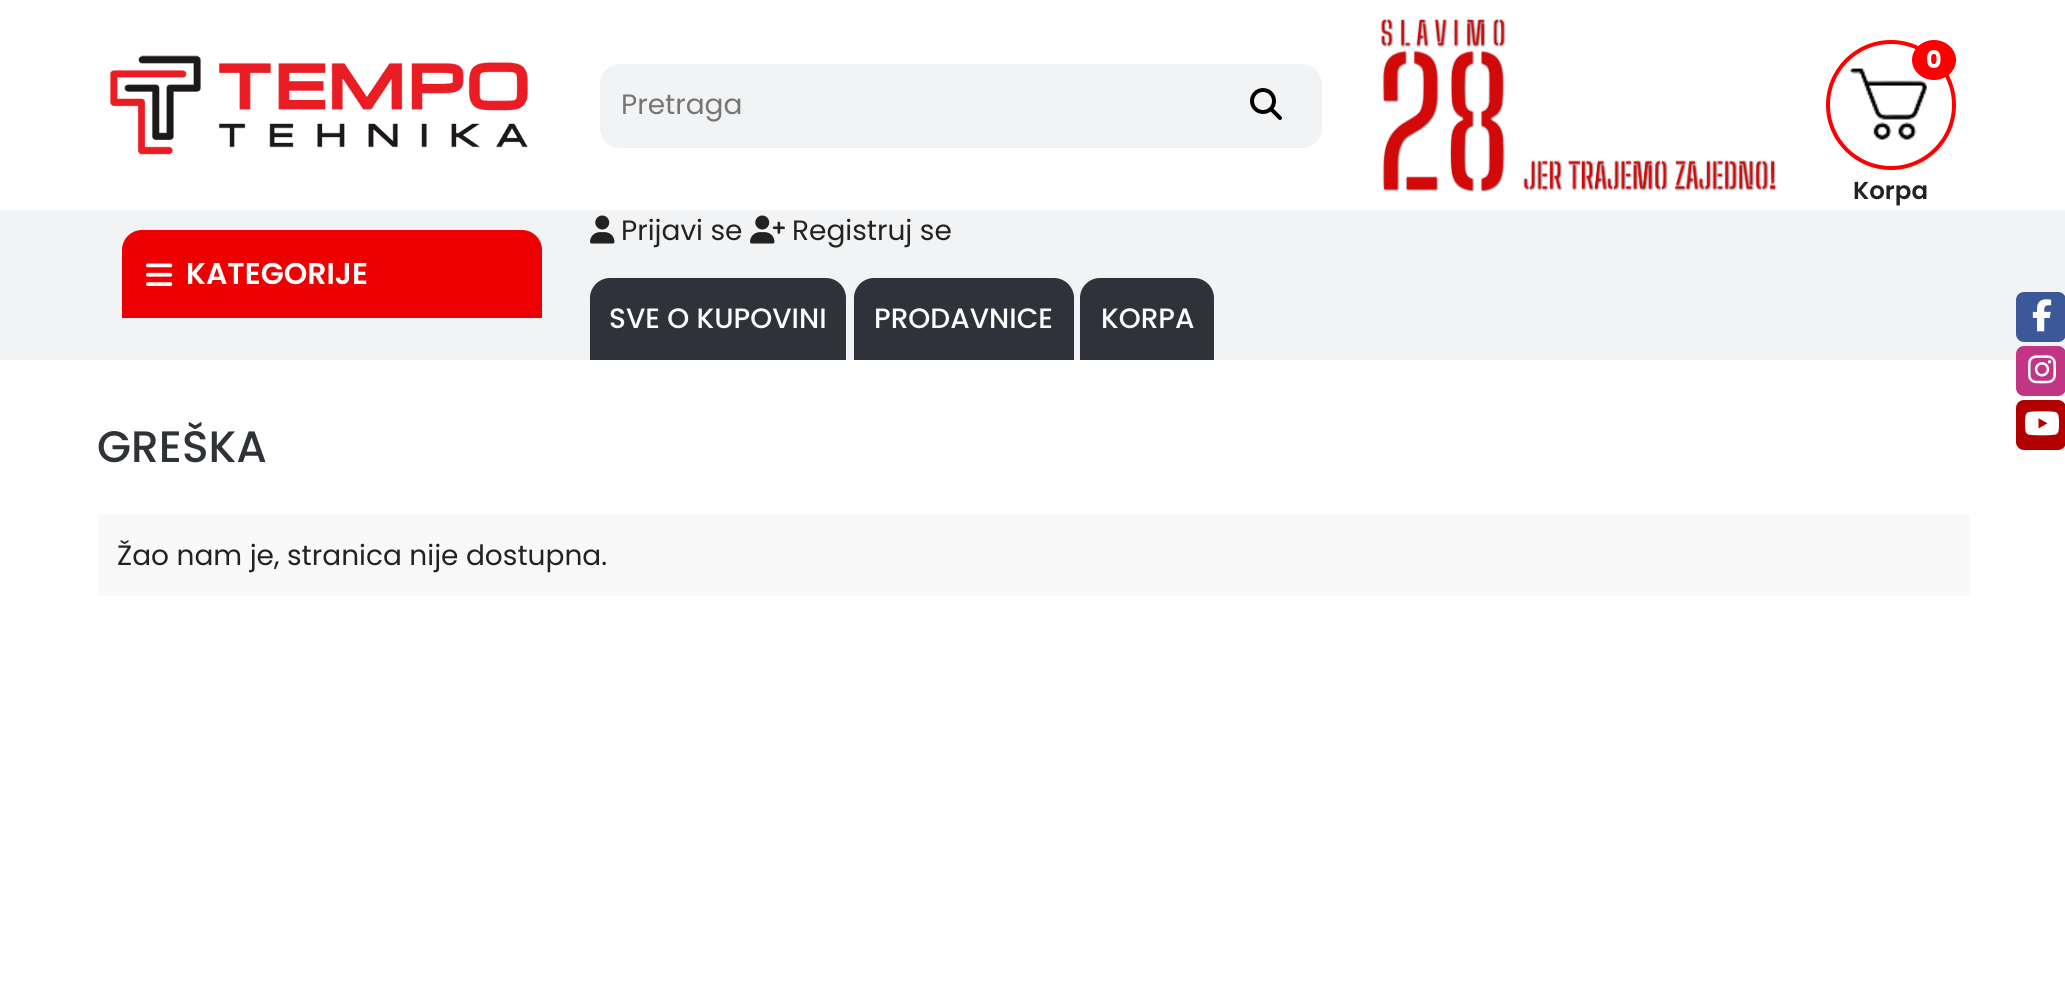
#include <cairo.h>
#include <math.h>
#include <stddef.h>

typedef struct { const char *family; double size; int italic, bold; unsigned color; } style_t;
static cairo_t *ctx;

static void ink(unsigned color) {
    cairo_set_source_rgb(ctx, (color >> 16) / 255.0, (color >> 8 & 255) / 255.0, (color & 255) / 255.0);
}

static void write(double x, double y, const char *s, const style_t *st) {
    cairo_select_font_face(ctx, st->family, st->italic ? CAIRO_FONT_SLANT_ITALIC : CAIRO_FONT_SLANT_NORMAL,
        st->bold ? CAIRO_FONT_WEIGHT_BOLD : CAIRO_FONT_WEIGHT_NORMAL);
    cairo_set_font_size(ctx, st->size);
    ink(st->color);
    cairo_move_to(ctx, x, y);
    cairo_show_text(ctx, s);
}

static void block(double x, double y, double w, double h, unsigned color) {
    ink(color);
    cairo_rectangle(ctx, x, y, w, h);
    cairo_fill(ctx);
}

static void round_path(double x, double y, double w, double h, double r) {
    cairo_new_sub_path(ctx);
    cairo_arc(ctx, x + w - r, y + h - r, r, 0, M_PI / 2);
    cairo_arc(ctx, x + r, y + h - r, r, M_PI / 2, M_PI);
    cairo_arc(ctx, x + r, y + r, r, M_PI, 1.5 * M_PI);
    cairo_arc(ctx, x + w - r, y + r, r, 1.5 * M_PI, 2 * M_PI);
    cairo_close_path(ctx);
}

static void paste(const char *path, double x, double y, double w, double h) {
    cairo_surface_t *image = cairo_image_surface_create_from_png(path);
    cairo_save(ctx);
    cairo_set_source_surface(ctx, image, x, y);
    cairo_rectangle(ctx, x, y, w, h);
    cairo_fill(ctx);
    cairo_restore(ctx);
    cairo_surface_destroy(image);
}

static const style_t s1 = {"Poppins", 28, 0, 0, 0x757575};
static const style_t s2 = {"Poppins", 24, 0, 1, 0xffffff};
static const style_t s3 = {"Poppins SemiBold", 24.5, 0, 0, 0x222222};
static const style_t s4 = {"Poppins SemiBold", 30, 0, 0, 0xffffff};
static const style_t s5 = {"Poppins", 28, 0, 0, 0x222222};
static const style_t s6 = {"Poppins Medium", 28, 0, 0, 0xffffff};
static const style_t s7 = {"Poppins Medium", 44, 0, 0, 0x30323a};

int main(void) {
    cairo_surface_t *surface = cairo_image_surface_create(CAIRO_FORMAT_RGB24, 2065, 989);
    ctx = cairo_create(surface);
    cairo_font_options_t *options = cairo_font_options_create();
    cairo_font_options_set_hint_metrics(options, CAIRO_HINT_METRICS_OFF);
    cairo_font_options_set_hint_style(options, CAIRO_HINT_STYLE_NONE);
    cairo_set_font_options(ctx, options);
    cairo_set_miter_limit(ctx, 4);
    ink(0xffffff);
    cairo_paint(ctx);
    paste("pic1.png", 109, 55, 420, 100);
    ink(0xf1f3f4);
    cairo_new_path(ctx);
    cairo_move_to(ctx, 620, 64);
    cairo_line_to(ctx, 1210, 64);
    cairo_line_to(ctx, 1210, 148);
    cairo_line_to(ctx, 620, 148);
    cairo_curve_to(ctx, 609, 148, 600, 139, 600, 128);
    cairo_line_to(ctx, 600, 84);
    cairo_curve_to(ctx, 600, 73, 609, 64, 620, 64);
    cairo_close_path(ctx);
    cairo_fill(ctx);
    write(621, 114, "Pretraga", &s1);
    ink(0xf1f3f4);
    cairo_new_path(ctx);
    cairo_move_to(ctx, 1210, 64);
    cairo_line_to(ctx, 1302, 64);
    cairo_curve_to(ctx, 1313, 64, 1322, 73, 1322, 84);
    cairo_line_to(ctx, 1322, 128);
    cairo_curve_to(ctx, 1322, 139, 1313, 148, 1302, 148);
    cairo_line_to(ctx, 1210, 148);
    cairo_close_path(ctx);
    cairo_fill(ctx);
    paste("pic2.png", 1250, 88, 32, 32);
    paste("pic3.png", 1380, 19, 397, 174);
    paste("pic4.png", 1850, 68, 77, 72);
    cairo_arc(ctx, 1891, 105, 63, 0, 2 * M_PI);
    ink(0xff0000);
    cairo_set_line_width(ctx, 4);
    cairo_stroke(ctx);
    cairo_new_path(ctx);
    cairo_move_to(ctx, 1934, 40);
    cairo_curve_to(ctx, 1946, 40, 1956, 49, 1956, 60);
    cairo_curve_to(ctx, 1956, 71, 1946, 80, 1934, 80);
    cairo_curve_to(ctx, 1922, 80, 1912, 71, 1912, 60);
    cairo_curve_to(ctx, 1912, 49, 1922, 40, 1934, 40);
    cairo_close_path(ctx);
    cairo_fill(ctx);
    write(1926, 68, "0", &s2);
    write(1853, 199, "Korpa", &s3);
    block(0, 210, 2065, 150, 0xf1f3f4);
    ink(0xec0000);
    cairo_new_path(ctx);
    cairo_move_to(ctx, 142, 230);
    cairo_line_to(ctx, 522, 230);
    cairo_curve_to(ctx, 533, 230, 542, 239, 542, 250);
    cairo_line_to(ctx, 542, 318);
    cairo_line_to(ctx, 122, 318);
    cairo_line_to(ctx, 122, 250);
    cairo_curve_to(ctx, 122, 239, 131, 230, 142, 230);
    cairo_close_path(ctx);
    cairo_fill(ctx);
    paste("pic5.png", 146, 263, 27, 23);
    write(186, 284, "KATEGORIJE", &s4);
    paste("pic6.png", 590, 215, 25, 29);
    write(621, 240, "Prijavi se", &s5);
    paste("pic7.png", 750, 215, 35, 29);
    write(792, 240, "Registruj se", &s5);
    ink(0x30323a);
    cairo_new_path(ctx);
    cairo_move_to(ctx, 610, 278);
    cairo_line_to(ctx, 826, 278);
    cairo_curve_to(ctx, 837, 278, 846, 287, 846, 298);
    cairo_line_to(ctx, 846, 360);
    cairo_line_to(ctx, 590, 360);
    cairo_line_to(ctx, 590, 298);
    cairo_curve_to(ctx, 590, 287, 599, 278, 610, 278);
    cairo_close_path(ctx);
    cairo_fill(ctx);
    write(609, 328, "SVE O KUPOVINI", &s6);
    ink(0x30323a);
    cairo_new_path(ctx);
    cairo_move_to(ctx, 874, 278);
    cairo_line_to(ctx, 1054, 278);
    cairo_curve_to(ctx, 1065, 278, 1074, 287, 1074, 298);
    cairo_line_to(ctx, 1074, 360);
    cairo_line_to(ctx, 854, 360);
    cairo_line_to(ctx, 854, 298);
    cairo_curve_to(ctx, 854, 287, 863, 278, 874, 278);
    cairo_close_path(ctx);
    cairo_fill(ctx);
    write(874, 328, "PRODAVNICE", &s6);
    ink(0x30323a);
    cairo_new_path(ctx);
    cairo_move_to(ctx, 1100, 278);
    cairo_line_to(ctx, 1194, 278);
    cairo_curve_to(ctx, 1205, 278, 1214, 287, 1214, 298);
    cairo_line_to(ctx, 1214, 360);
    cairo_line_to(ctx, 1080, 360);
    cairo_line_to(ctx, 1080, 298);
    cairo_curve_to(ctx, 1080, 287, 1089, 278, 1100, 278);
    cairo_close_path(ctx);
    cairo_fill(ctx);
    write(1101, 328, "KORPA", &s6);
    ink(0x3b5999);
    round_path(2016, 292, 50, 50, 8);
    cairo_fill(ctx);
    paste("pic8.png", 2032, 299, 20, 33);
    ink(0xc13584);
    round_path(2016, 346, 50, 50, 8);
    cairo_fill(ctx);
    paste("pic9.png", 2028, 355, 28, 29);
    ink(0xb30000);
    round_path(2016, 400, 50, 50, 8);
    cairo_fill(ctx);
    paste("pic10.png", 2024, 411, 36, 25);
    write(97, 462, "GREŠKA", &s7);
    block(98, 514, 1872, 82, 0xf9f9f9);
    write(117, 565, "Žao nam je, stranica nije dostupna.", &s5);
    cairo_surface_write_to_png(surface, "screenshot.png");
    cairo_font_options_destroy(options);
    cairo_destroy(ctx);
    cairo_surface_destroy(surface);
    return 0;
}
